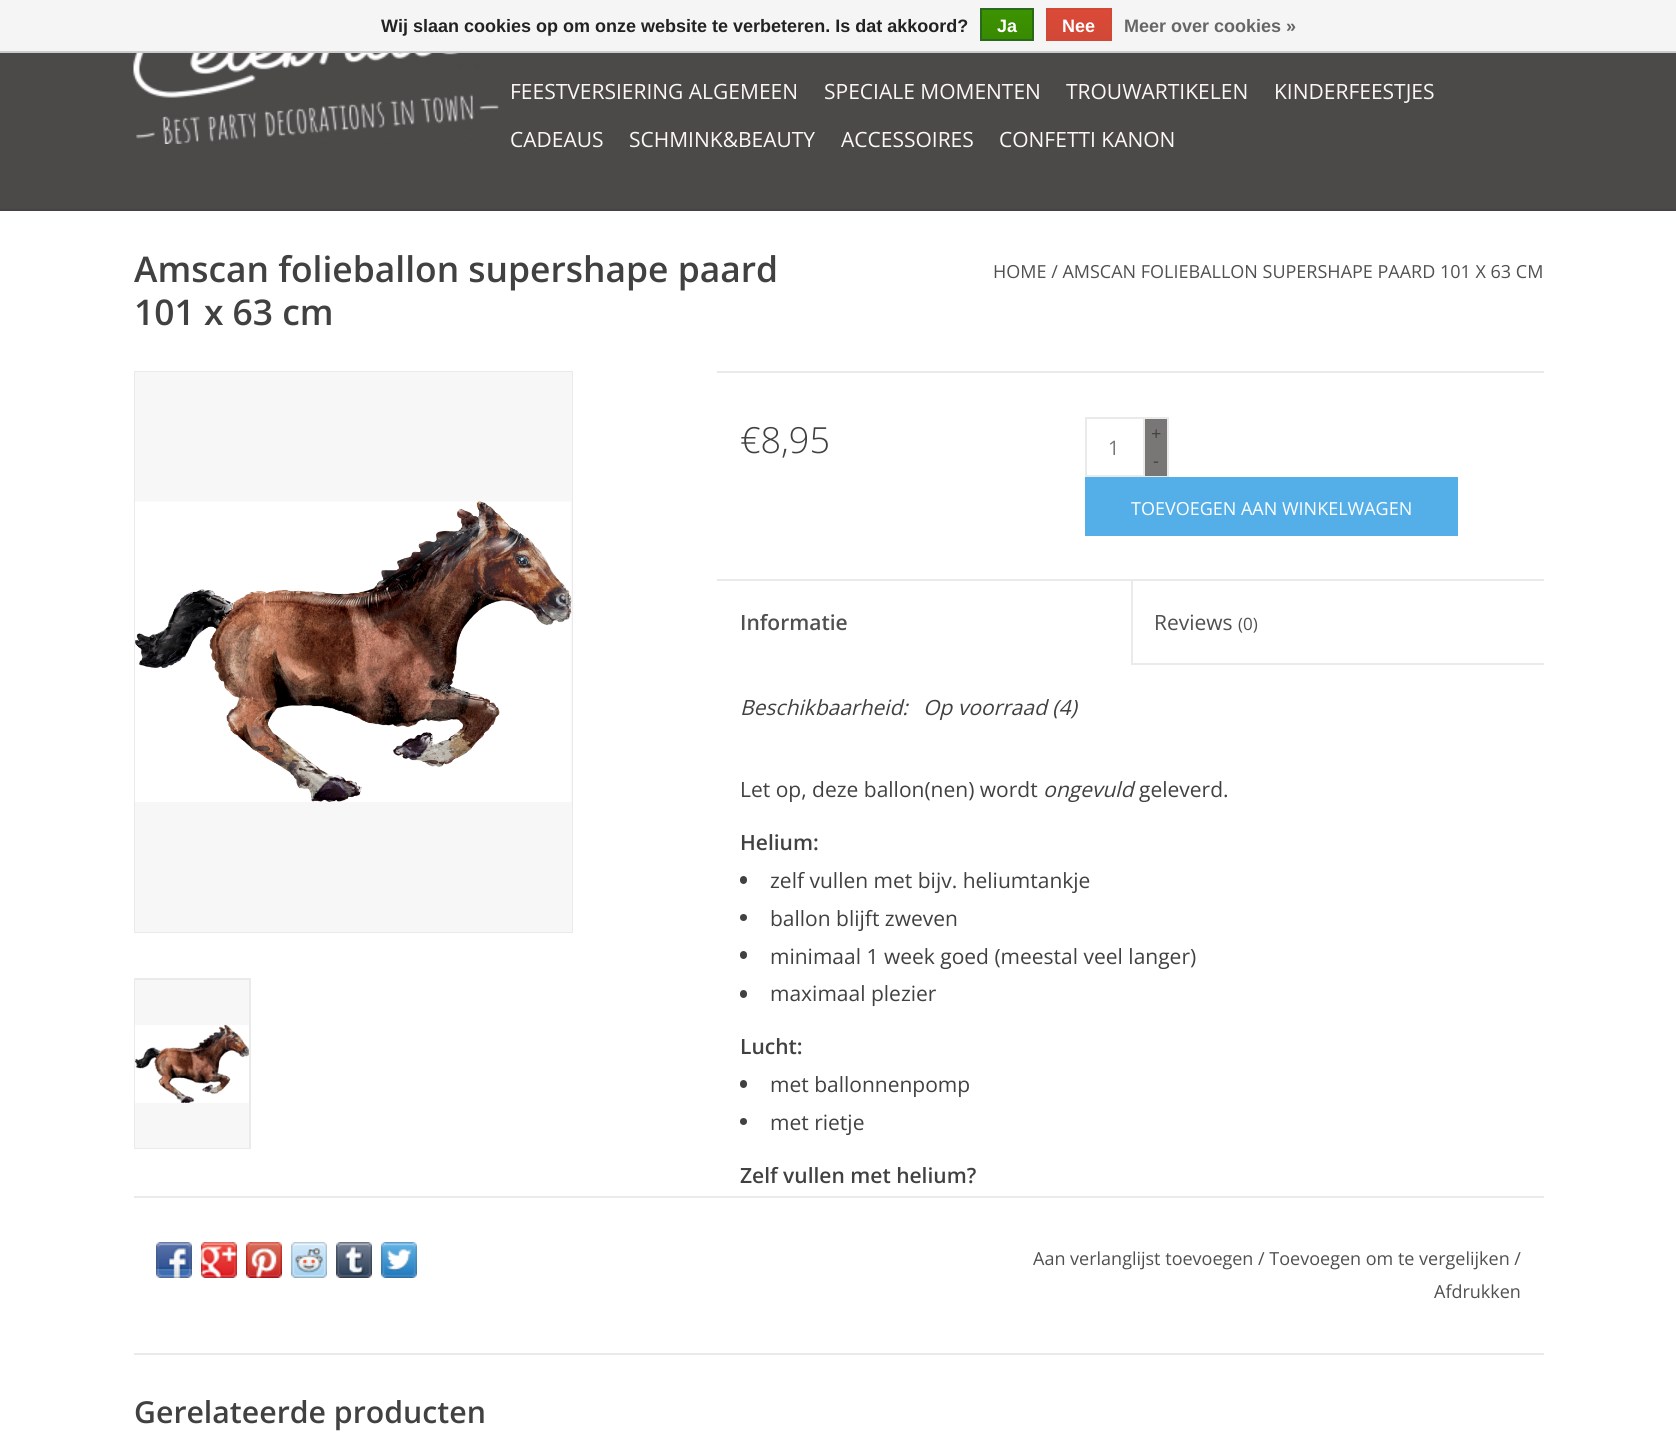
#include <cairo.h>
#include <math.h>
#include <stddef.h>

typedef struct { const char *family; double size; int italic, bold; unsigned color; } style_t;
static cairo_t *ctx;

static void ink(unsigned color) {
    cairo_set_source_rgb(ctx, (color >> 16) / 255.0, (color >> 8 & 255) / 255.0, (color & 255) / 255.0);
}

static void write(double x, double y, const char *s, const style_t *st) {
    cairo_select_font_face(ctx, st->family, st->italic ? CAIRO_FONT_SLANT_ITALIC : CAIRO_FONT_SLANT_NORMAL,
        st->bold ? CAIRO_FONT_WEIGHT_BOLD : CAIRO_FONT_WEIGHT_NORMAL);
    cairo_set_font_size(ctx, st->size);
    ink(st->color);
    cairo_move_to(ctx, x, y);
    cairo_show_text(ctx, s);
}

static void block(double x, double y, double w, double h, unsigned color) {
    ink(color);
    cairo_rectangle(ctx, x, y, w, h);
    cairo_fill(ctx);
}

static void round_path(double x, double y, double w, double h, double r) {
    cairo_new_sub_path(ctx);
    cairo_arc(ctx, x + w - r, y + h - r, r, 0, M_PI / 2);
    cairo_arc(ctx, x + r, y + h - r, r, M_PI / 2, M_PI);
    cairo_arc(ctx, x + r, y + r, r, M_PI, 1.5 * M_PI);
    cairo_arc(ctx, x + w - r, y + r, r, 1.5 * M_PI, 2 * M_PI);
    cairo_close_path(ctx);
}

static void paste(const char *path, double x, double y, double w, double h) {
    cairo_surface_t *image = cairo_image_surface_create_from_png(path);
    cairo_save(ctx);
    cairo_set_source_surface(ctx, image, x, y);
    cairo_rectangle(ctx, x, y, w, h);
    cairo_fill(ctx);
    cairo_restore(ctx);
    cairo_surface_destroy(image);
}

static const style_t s1 = {"Liberation Sans", 18, 0, 1, 0x222222};
static const style_t s2 = {"Liberation Sans", 18, 0, 1, 0xffffff};
static const style_t s3 = {"Liberation Sans", 18, 0, 1, 0x666666};
static const style_t s4 = {"Open Sans", 21, 0, 0, 0xfcf7f7};
static const style_t s5 = {"Open Sans SemiBold", 35.4, 0, 0, 0x414141};
static const style_t s6 = {"Open Sans", 18, 0, 0, 0x505050};
static const style_t s7 = {"Open Sans Light", 36, 0, 0, 0x414141};
static const style_t s8 = {"Open Sans", 20, 0, 0, 0x777777};
static const style_t s9 = {"Open Sans", 18, 0, 0, 0x414141};
static const style_t s10 = {"Open Sans", 18, 0, 0, 0xffffff};
static const style_t s11 = {"Open Sans SemiBold", 21, 0, 0, 0x505050};
static const style_t s12 = {"Open Sans", 21, 0, 0, 0x505050};
static const style_t s13 = {"Open Sans", 17, 0, 0, 0x505050};
static const style_t s14 = {"Open Sans", 21, 1, 0, 0x414141};
static const style_t s15 = {"Open Sans", 21, 0, 0, 0x414141};
static const style_t s16 = {"Open Sans SemiBold", 21, 0, 0, 0x414141};
static const style_t s17 = {"Open Sans SemiBold", 30.25, 0, 0, 0x414141};

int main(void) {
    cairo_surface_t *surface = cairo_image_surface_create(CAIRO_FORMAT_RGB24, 1676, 1444);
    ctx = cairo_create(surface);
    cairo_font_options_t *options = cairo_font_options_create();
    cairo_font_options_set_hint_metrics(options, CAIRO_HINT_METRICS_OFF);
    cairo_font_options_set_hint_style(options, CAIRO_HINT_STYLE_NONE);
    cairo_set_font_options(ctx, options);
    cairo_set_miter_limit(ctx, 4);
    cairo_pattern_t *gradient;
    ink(0xffffff);
    cairo_paint(ctx);
    block(0, 0, 1676, 51, 0xf5f5f5);
    block(0, 51, 1676, 2, 0xcccccc);
    write(381, 32, "Wij slaan cookies op om onze website te verbeteren. Is dat akkoord?", &s1);
    gradient = cairo_pattern_create_linear(1007, 9, 1007, 39);
    cairo_pattern_add_color_stop_rgba(gradient, 0, 0.235, 0.576, 0, 1);
    cairo_pattern_add_color_stop_rgba(gradient, 1, 0.224, 0.541, 0, 1);
    cairo_set_source(ctx, gradient);
    cairo_pattern_destroy(gradient);
    cairo_rectangle(ctx, 982, 10, 50, 29);
    cairo_fill(ctx);
    cairo_rectangle(ctx, 981, 9, 52, 31);
    ink(0x29691d);
    cairo_stroke(ctx);
    write(997, 32, "Ja", &s2);
    gradient = cairo_pattern_create_linear(1079, 9, 1079, 39);
    cairo_pattern_add_color_stop_rgba(gradient, 0, 0.863, 0.29, 0.22, 1);
    cairo_pattern_add_color_stop_rgba(gradient, 1, 0.82, 0.282, 0.212, 1);
    cairo_set_source(ctx, gradient);
    cairo_pattern_destroy(gradient);
    cairo_rectangle(ctx, 1048, 10, 62, 29);
    cairo_fill(ctx);
    cairo_rectangle(ctx, 1047, 9, 64, 31);
    ink(0xd14836);
    cairo_stroke(ctx);
    write(1062, 32, "Nee", &s2);
    write(1124, 32, "Meer over cookies »", &s3);
    block(0, 53, 1676, 156, 0x4c4949);
    block(0, 209, 1676, 2, 0x454343);
    paste("pic1.png", 133, 53, 366, 91);
    write(510, 99, "FEESTVERSIERING ALGEMEEN", &s4);
    write(824, 99, "SPECIALE MOMENTEN", &s4);
    write(1066, 99, "TROUWARTIKELEN", &s4);
    write(1274, 99, "KINDERFEESTJES", &s4);
    write(510, 147, "CADEAUS", &s4);
    write(629, 147, "SCHMINK&BEAUTY", &s4);
    write(841, 147, "ACCESSOIRES", &s4);
    write(999, 147, "CONFETTI KANON", &s4);
    write(134, 282, "Amscan folieballon supershape paard", &s5);
    write(134, 325, "101 x 63 cm", &s5);
    write(993, 278, "HOME / AMSCAN FOLIEBALLON SUPERSHAPE PAARD 101 X 63 CM", &s6);
    cairo_rectangle(ctx, 135, 372, 437, 560);
    ink(0xeaeaea);
    cairo_stroke(ctx);
    block(135, 372, 437, 560, 0xf7f7f7);
    paste("pic2.png", 135, 501, 437, 301);
    cairo_rectangle(ctx, 135, 979, 115, 169);
    ink(0xeaeaea);
    cairo_stroke(ctx);
    block(135, 980, 114, 168, 0xf7f7f7);
    paste("pic3.png", 135, 1024, 114, 79);
    block(717, 371, 827, 2, 0xeaeaea);
    write(740, 453, "€8,95", &s7);
    cairo_rectangle(ctx, 1086, 418, 58, 58);
    ink(0xeaeaea);
    cairo_stroke(ctx);
    write(1108, 455, "1", &s8);
    block(1145, 419, 22, 57, 0x797676);
    block(1145, 417, 24, 2, 0xeaeaea);
    block(1167, 417, 2, 60, 0xeaeaea);
    block(1145, 476, 24, 1, 0xeaeaea);
    write(1151, 440, "+", &s9);
    write(1153, 467, "-", &s9);
    block(1085, 477, 373, 59, 0x54afe9);
    write(1131, 515, "TOEVOEGEN AAN WINKELWAGEN", &s10);
    block(717, 579, 827, 2, 0xeaeaea);
    write(740, 630, "Informatie", &s11);
    block(1131, 663, 413, 2, 0xeaeaea);
    block(1131, 581, 2, 84, 0xeaeaea);
    write(1154, 630, "Reviews", &s12);
    write(1238, 630, "(0)", &s13);
    write(740, 715, "Beschikbaarheid:", &s14);
    write(923, 715, "Op voorraad (4)", &s14);
    write(740, 797, "Let op, deze ballon(nen) wordt", &s15);
    write(1043, 797, "ongevuld", &s14);
    write(1139, 797, "geleverd.", &s15);
    write(740, 850, "Helium:", &s16);
    round_path(740, 876, 7, 8, 3.5);
    cairo_fill(ctx);
    write(770, 888, "zelf vullen met bijv. heliumtankje", &s15);
    cairo_new_path(ctx);
    cairo_arc(ctx, 743.5, 917.5, 3.5, 0, 2 * M_PI);
    cairo_fill(ctx);
    write(770, 926, "ballon blijft zweven", &s15);
    round_path(740, 951, 7, 8, 3.5);
    cairo_fill(ctx);
    write(770, 964, "minimaal 1 week goed (meestal veel langer)", &s15);
    round_path(740, 990, 7, 8, 3.5);
    cairo_fill(ctx);
    write(770, 1001, "maximaal plezier", &s15);
    write(740, 1054, "Lucht:", &s16);
    round_path(740, 1080, 7, 8, 3.5);
    cairo_fill(ctx);
    write(770, 1092, "met ballonnenpomp", &s15);
    cairo_new_path(ctx);
    cairo_arc(ctx, 743.5, 1121.5, 3.5, 0, 2 * M_PI);
    cairo_fill(ctx);
    write(770, 1130, "met rietje", &s15);
    write(740, 1183, "Zelf vullen met helium?", &s16);
    block(134, 1196, 1410, 2, 0xeaeaea);
    block(134, 1353, 1410, 2, 0xeaeaea);
    paste("pic4.png", 156, 1242, 36, 36);
    paste("pic5.png", 201, 1242, 36, 36);
    paste("pic6.png", 246, 1242, 36, 36);
    paste("pic7.png", 291, 1242, 36, 36);
    paste("pic8.png", 336, 1242, 36, 36);
    paste("pic9.png", 381, 1242, 36, 36);
    write(1033, 1265, "Aan verlanglijst toevoegen / Toevoegen om te vergelijken /", &s6);
    write(1434, 1298, "Afdrukken", &s6);
    write(134, 1423, "Gerelateerde producten", &s17);
    cairo_surface_write_to_png(surface, "screenshot.png");
    cairo_font_options_destroy(options);
    cairo_destroy(ctx);
    cairo_surface_destroy(surface);
    return 0;
}
